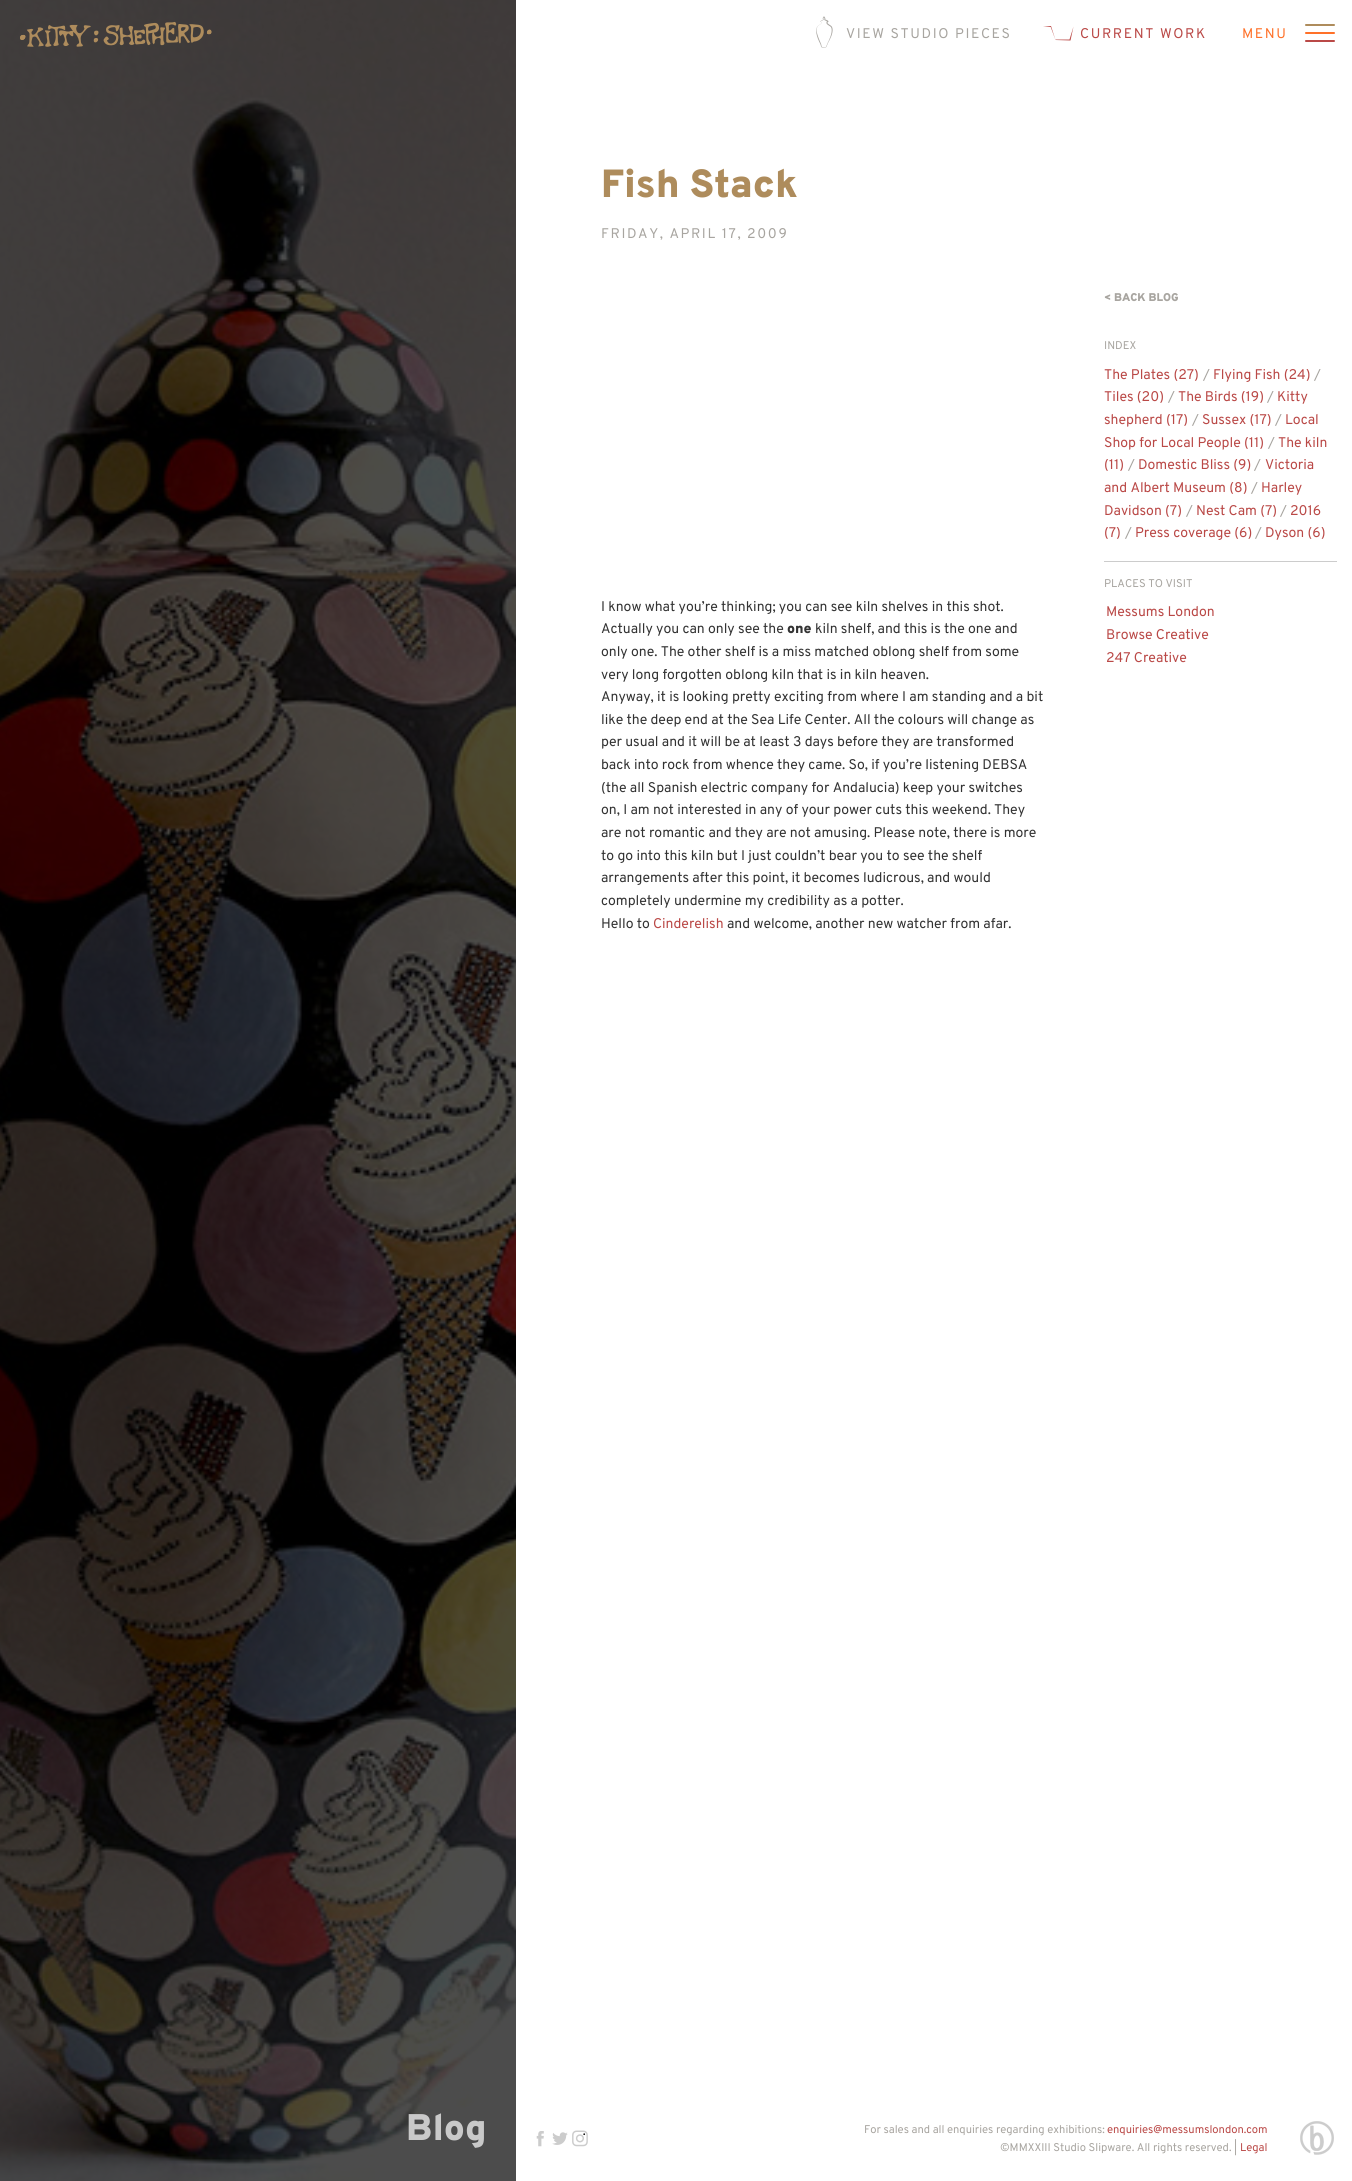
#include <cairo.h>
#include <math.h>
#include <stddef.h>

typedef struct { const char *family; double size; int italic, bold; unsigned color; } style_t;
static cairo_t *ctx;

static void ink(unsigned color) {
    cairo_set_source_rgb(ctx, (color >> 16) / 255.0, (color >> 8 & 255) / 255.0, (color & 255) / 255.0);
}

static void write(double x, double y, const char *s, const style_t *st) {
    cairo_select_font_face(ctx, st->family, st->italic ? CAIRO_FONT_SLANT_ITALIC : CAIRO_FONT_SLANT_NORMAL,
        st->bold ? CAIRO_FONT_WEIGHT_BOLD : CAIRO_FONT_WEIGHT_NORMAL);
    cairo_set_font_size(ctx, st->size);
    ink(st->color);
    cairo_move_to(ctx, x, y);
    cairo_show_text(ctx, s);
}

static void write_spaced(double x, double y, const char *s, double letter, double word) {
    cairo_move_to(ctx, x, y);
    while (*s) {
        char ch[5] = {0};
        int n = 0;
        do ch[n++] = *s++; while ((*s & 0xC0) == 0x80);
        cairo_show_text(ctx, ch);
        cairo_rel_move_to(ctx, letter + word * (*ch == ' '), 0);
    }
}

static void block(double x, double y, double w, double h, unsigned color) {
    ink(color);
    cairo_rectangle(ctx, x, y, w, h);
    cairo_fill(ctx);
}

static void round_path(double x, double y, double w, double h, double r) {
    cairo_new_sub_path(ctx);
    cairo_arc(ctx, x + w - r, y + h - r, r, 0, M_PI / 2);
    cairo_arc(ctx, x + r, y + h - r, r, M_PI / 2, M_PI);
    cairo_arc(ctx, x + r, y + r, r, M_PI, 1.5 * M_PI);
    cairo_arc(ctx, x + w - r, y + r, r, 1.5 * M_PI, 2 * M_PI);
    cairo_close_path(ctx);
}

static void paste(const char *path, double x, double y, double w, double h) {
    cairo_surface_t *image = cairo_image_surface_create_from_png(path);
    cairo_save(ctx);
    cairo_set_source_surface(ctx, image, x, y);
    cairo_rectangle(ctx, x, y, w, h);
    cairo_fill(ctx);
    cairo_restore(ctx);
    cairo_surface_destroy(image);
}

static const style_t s1 = {"Overpass Black", 39.25, 0, 0, 0xae8c5c};
static const style_t s2 = {"Overpass Black", 11.2, 0, 0, 0xa8a5a0};
static const style_t s3 = {"Overpass", 11.2, 0, 0, 0xa8a5a0};
static const style_t s4 = {"Overpass", 14, 0, 0, 0xba4947};
static const style_t s5 = {"Overpass", 14, 0, 0, 0xa8a5a0};
static const style_t s6 = {"Overpass", 14, 0, 0, 0x333333};
static const style_t s7 = {"Overpass Black", 14, 0, 0, 0x333333};
static const style_t s8 = {"Overpass Black", 37, 0, 0, 0xc9c9c9};
static const style_t s9 = {"Overpass", 11.2, 0, 0, 0xba4947};

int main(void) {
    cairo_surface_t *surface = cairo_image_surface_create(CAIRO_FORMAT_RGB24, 1352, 2181);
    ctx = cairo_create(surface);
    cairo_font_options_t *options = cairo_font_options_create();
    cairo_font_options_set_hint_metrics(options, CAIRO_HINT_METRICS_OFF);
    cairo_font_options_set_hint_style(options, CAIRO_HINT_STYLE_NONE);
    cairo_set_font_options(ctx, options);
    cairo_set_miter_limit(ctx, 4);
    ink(0xffffff);
    cairo_paint(ctx);
    paste("pic3.png", 0, 0, 516, 2181);
    paste("pic1.png", 20, 21, 192, 26);
    paste("pic2.png", 816, 16, 17, 32);
    cairo_select_font_face(ctx, "Overpass", CAIRO_FONT_SLANT_NORMAL, CAIRO_FONT_WEIGHT_NORMAL);
    cairo_set_font_size(ctx, 14);
    ink(0xa8a5a0);
    write_spaced(846, 38, "VIEW STUDIO PIECES", 1.6, 0);
    ink(0xba4947);
    cairo_new_path(ctx);
    cairo_move_to(ctx, 1043, 26.5);
    cairo_line_to(ctx, 1051, 26);
    cairo_line_to(ctx, 1055.5, 40);
    cairo_line_to(ctx, 1055.5, 39.5);
    cairo_line_to(ctx, 1070, 39.5);
    cairo_line_to(ctx, 1069.5, 39.5);
    cairo_line_to(ctx, 1073.5, 26.5);
    cairo_line_to(ctx, 1070.5, 40.5);
    cairo_line_to(ctx, 1055.5, 40);
    cairo_line_to(ctx, 1050.5, 26.5);
    cairo_line_to(ctx, 1050.5, 27);
    cairo_close_path(ctx);
    cairo_fill(ctx);
    write_spaced(1080, 38, "CURRENT WORK", 1.6, 0);
    ink(0xae8c5c);
    round_path(1305, 24, 30, 2, 1);
    cairo_fill(ctx);
    ink(0xff7129);
    write_spaced(1242, 38, "MENU", 1.6, 0);
    round_path(1305, 32, 30, 2, 1);
    cairo_fill(ctx);
    ink(0xba4947);
    round_path(1305, 40, 30, 2, 1);
    cairo_fill(ctx);
    write(601, 197, "Fish Stack", &s1);
    cairo_select_font_face(ctx, "Overpass", CAIRO_FONT_SLANT_NORMAL, CAIRO_FONT_WEIGHT_NORMAL);
    cairo_set_font_size(ctx, 14);
    ink(0xa8a5a0);
    write_spaced(601, 238, "FRIDAY, APRIL 17, 2009", 1.6, 0);
    write(1104, 301, "< BACK BLOG", &s2);
    block(1104, 561, 233, 1, 0xcccccc);
    write(1104, 349, "INDEX", &s3);
    write(1104, 379, "The Plates (27)", &s4);
    write(1203, 379, "/", &s5);
    write(1213, 379, "Flying Fish (24)", &s4);
    write(1314, 379, "/", &s5);
    write(1104, 401, "Tiles (20)", &s4);
    write(1168, 401, "/", &s5);
    write(1178, 401, "The Birds (19)", &s4);
    write(1267, 401, "/", &s5);
    write(1277, 401, "Kitty", &s4);
    write(1104, 424, "shepherd (17)", &s4);
    write(1192, 424, "/", &s5);
    write(1202, 424, "Sussex (17)", &s4);
    write(1275, 424, "/", &s5);
    write(1285, 424, "Local", &s4);
    write(1104, 447, "Shop for Local People (11)", &s4);
    write(1268, 447, "/", &s5);
    write(1278, 447, "The kiln", &s4);
    write(1104, 469, "(11)", &s4);
    write(1128, 469, "/", &s5);
    write(1138, 469, "Domestic Bliss (9)", &s4);
    write(1254, 469, "/", &s5);
    write(1265, 469, "Victoria", &s4);
    write(1104, 492, "and Albert Museum (8)", &s4);
    write(1251, 492, "/", &s5);
    write(1261, 492, "Harley", &s4);
    write(1104, 515, "Davidson (7)", &s4);
    write(1186, 515, "/", &s5);
    write(1196, 515, "Nest Cam (7)", &s4);
    write(1280, 515, "/", &s5);
    write(1290, 515, "2016", &s4);
    write(1104, 537, "(7)", &s4);
    write(1125, 537, "/", &s5);
    write(1135, 537, "Press coverage (6)", &s4);
    write(1255, 537, "/", &s5);
    write(1265, 537, "Dyson (6)", &s4);
    write(1104, 587, "PLACES TO VISIT", &s3);
    write(1106, 616, "Messums London", &s4);
    write(1106, 639, "Browse Creative", &s4);
    write(1106, 662, "247 Creative", &s4);
    write(601, 611, "I know what you’re thinking; you can see kiln shelves in this shot.", &s6);
    write(601, 633, "Actually you can only see the", &s6);
    write(787, 633, "one", &s7);
    write(815, 633, "kiln shelf, and this is the one and", &s6);
    write(601, 656, "only one. The other shelf is a miss matched oblong shelf from some", &s6);
    write(601, 679, "very long forgotten oblong kiln that is in kiln heaven.", &s6);
    write(601, 701, "Anyway, it is looking pretty exciting from where I am standing and a bit", &s6);
    write(601, 724, "like the deep end at the Sea Life Center. All the colours will change as", &s6);
    write(601, 746, "per usual and it will be at least 3 days before they are transformed", &s6);
    write(601, 769, "back into rock from whence they came. So, if you’re listening DEBSA", &s6);
    write(601, 792, "(the all Spanish electric company for Andalucia) keep your switches", &s6);
    write(601, 814, "on, I am not interested in any of your power cuts this weekend. They", &s6);
    write(601, 837, "are not romantic and they are not amusing. Please note, there is more", &s6);
    write(601, 860, "to go into this kiln but I just couldn’t bear you to see the shelf", &s6);
    write(601, 882, "arrangements after this point, it becomes ludicrous, and would", &s6);
    write(601, 905, "completely undermine my credibility as a potter.", &s6);
    write(601, 928, "Hello to", &s6);
    write(653, 928, "Cinderelish", &s4);
    write(727, 928, "and welcome, another new watcher from afar.", &s6);
    write(406, 2140, "Blog", &s8);
    paste("pic4.png", 536, 2131, 8, 16);
    paste("pic5.png", 552, 2132, 16, 13);
    paste("pic6.png", 572, 2130, 16, 17);
    write(864, 2133, "For sales and all enquiries regarding exhibitions:", &s3);
    write(1107, 2133, "enquiries@messumslondon.com", &s9);
    write(1000, 2151, "©MMXXIII Studio Slipware. All rights reserved. |", &s3);
    write(1240, 2151, "Legal", &s9);
    paste("pic7.png", 1300, 2121, 34, 34);
    cairo_surface_write_to_png(surface, "screenshot.png");
    cairo_font_options_destroy(options);
    cairo_destroy(ctx);
    cairo_surface_destroy(surface);
    return 0;
}
